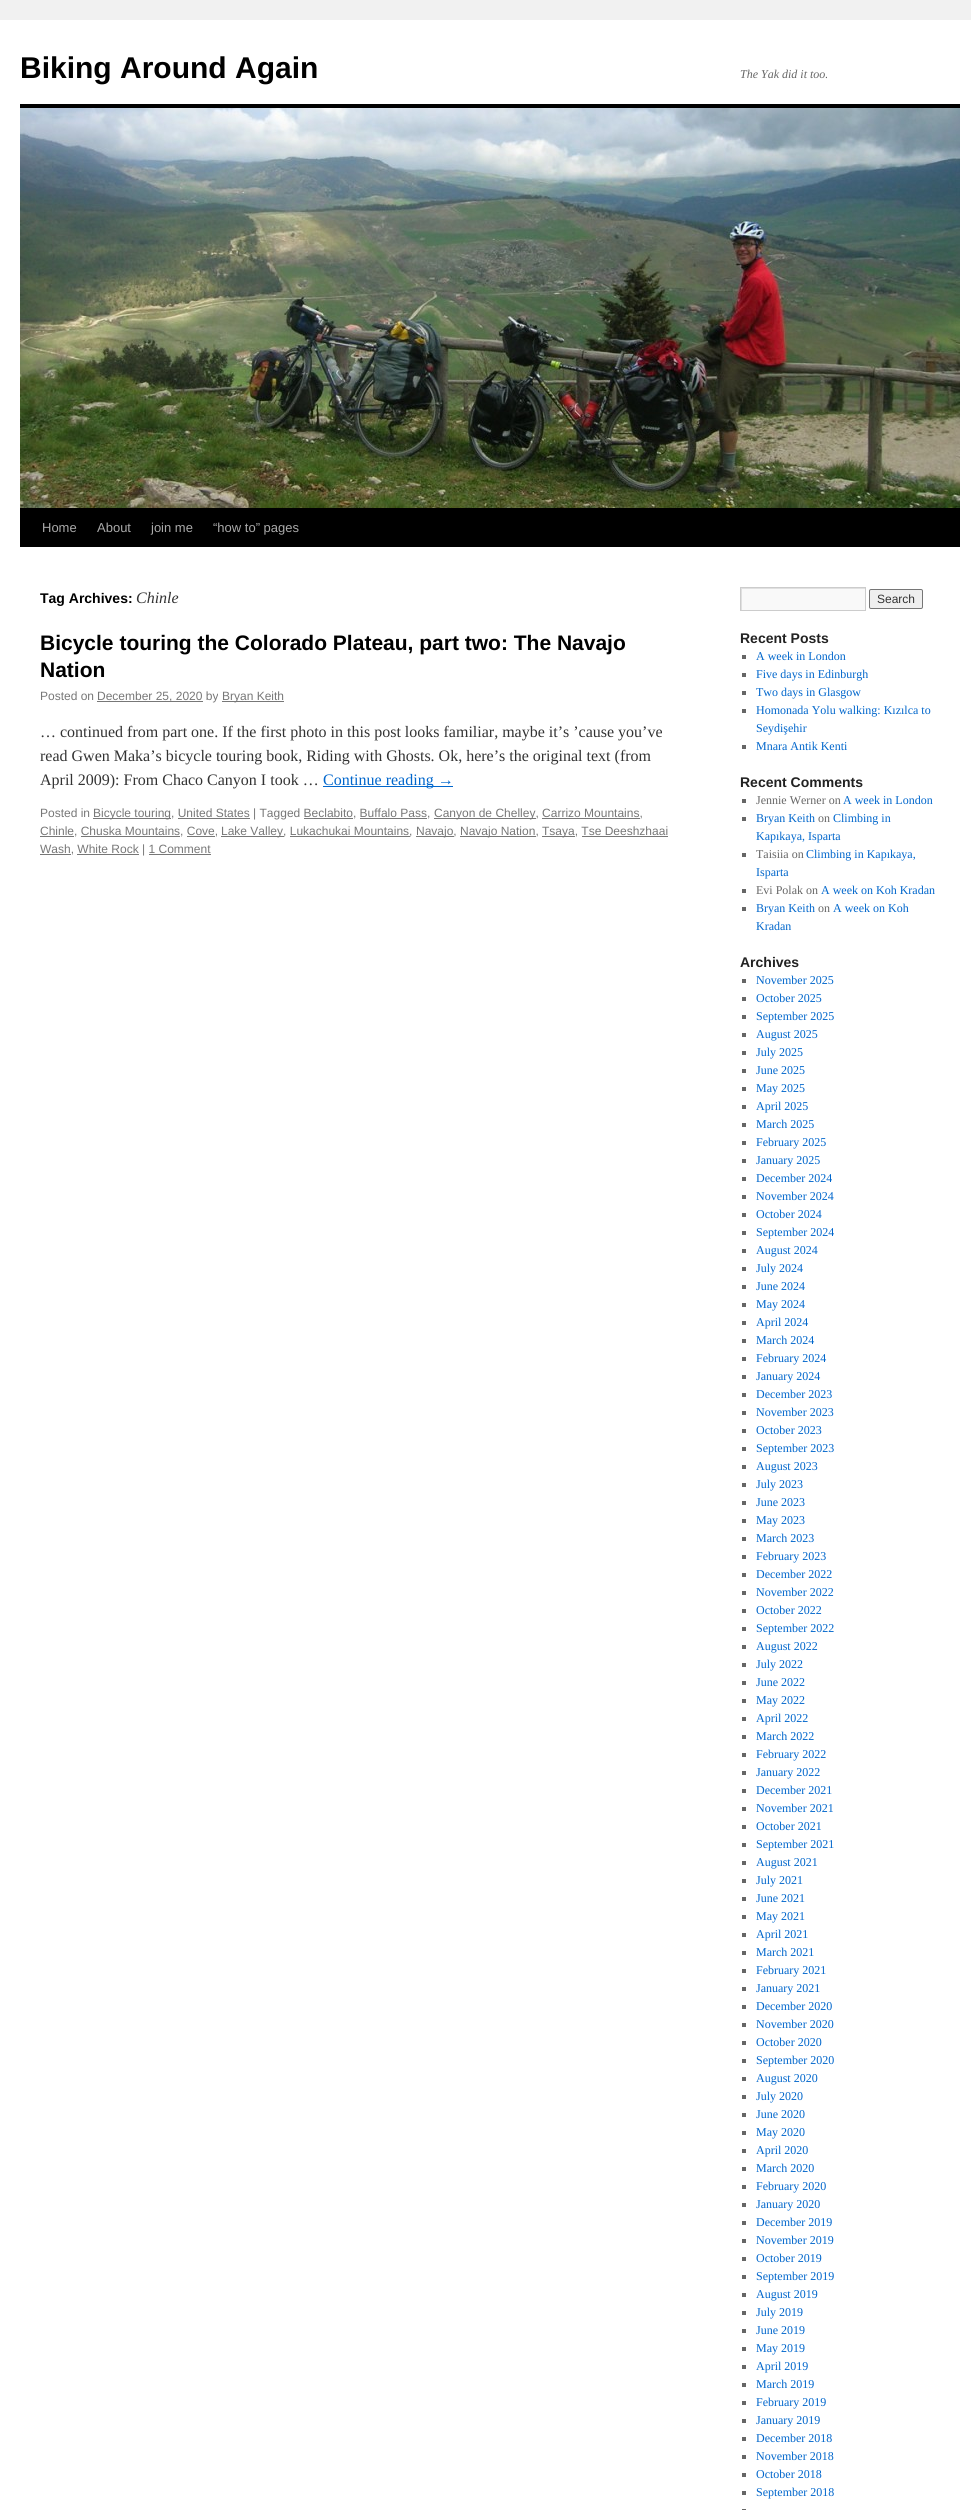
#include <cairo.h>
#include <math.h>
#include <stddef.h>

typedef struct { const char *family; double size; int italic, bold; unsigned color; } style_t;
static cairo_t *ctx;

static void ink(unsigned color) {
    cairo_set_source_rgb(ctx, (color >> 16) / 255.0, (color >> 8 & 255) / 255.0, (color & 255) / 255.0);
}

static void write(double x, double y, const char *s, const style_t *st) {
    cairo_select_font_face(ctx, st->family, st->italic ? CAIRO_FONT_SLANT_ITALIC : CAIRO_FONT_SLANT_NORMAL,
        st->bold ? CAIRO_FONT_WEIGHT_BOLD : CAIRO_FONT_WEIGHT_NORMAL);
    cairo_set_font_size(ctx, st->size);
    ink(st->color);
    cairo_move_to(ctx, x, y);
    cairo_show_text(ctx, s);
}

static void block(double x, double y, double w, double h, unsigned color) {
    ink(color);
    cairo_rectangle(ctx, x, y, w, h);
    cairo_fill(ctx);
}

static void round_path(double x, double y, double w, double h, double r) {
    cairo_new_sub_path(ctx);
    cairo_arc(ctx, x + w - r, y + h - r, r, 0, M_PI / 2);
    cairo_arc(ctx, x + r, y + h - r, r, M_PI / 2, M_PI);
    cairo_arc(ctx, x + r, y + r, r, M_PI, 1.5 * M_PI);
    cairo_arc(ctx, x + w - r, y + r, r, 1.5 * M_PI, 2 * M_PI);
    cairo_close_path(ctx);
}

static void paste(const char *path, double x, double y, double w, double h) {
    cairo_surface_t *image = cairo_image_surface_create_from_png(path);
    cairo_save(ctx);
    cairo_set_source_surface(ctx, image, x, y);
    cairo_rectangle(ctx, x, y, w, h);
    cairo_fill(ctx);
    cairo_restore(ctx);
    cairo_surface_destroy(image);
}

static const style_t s1 = {"Liberation Sans", 30, 0, 1, 0x000000};
static const style_t s2 = {"Liberation Serif", 12, 1, 0, 0x666666};
static const style_t s3 = {"Liberation Sans", 13, 0, 0, 0xaaaaaa};
static const style_t s4 = {"Liberation Sans", 14, 0, 1, 0x000000};
static const style_t s5 = {"Liberation Serif", 16, 1, 0, 0x333333};
static const style_t s6 = {"Liberation Sans", 21, 0, 1, 0x000000};
static const style_t s7 = {"Liberation Sans", 12, 0, 0, 0x777777};
static const style_t s8 = {"Liberation Serif", 16, 0, 0, 0x333333};
static const style_t s9 = {"Liberation Serif", 16, 0, 0, 0x0066cc};
static const style_t s10 = {"Liberation Sans", 12, 0, 0, 0x333333};
static const style_t s11 = {"Liberation Sans", 14, 0, 1, 0x222222};
static const style_t s12 = {"Liberation Serif", 12, 0, 0, 0x0066cc};
static const style_t s13 = {"Liberation Serif", 12, 0, 0, 0x666666};

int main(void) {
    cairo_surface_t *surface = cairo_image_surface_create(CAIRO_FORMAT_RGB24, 971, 2510);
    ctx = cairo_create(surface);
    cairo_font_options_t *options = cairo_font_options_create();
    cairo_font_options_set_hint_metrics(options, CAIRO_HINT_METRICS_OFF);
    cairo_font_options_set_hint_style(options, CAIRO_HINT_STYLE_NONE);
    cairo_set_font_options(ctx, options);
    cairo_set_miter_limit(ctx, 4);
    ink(0xf1f1f1);
    cairo_paint(ctx);
    block(0, 20, 971, 2490, 0xffffff);
    write(20, 78, "Biking Around Again", &s1);
    write(740, 78, "The Yak did it too.", &s2);
    block(20, 104, 940, 4, 0x000000);
    block(20, 508, 940, 39, 0x000000);
    paste("pic1.png", 20, 108, 940, 400);
    write(42, 532, "Home", &s3);
    write(97, 532, "About", &s3);
    write(151, 532, "join me", &s3);
    write(213, 532, "“how to” pages", &s3);
    write(40, 603, "Tag Archives:", &s4);
    write(136, 603, "Chinle", &s5);
    write(40, 650, "Bicycle touring the Colorado Plateau, part two: The Navajo", &s6);
    write(40, 677, "Nation", &s6);
    write(40, 700, "Posted on", &s7);
    block(97, 701, 106, 1, 0x777777);
    write(97, 700, "December 25, 2020 by", &s7);
    block(222, 701, 62, 1, 0x777777);
    write(222, 700, "Bryan Keith", &s7);
    write(40, 737, "… continued from part one. If the first photo in this post looks familiar, maybe it’s ’cause you’ve", &s8);
    write(40, 761, "read Gwen Maka’s bicycle touring book, Riding with Ghosts. Ok, here’s the original text (from", &s8);
    write(40, 785, "April 2009): From Chaco Canyon I took …", &s8);
    block(323, 786, 130, 1, 0x0066cc);
    write(323, 785, "Continue reading →", &s9);
    write(40, 817, "Posted in", &s7);
    block(93, 818, 78, 1, 0x777777);
    write(93, 817, "Bicycle touring, United States | Tagged Beclabito, Buffalo Pass,", &s7);
    block(178, 818, 72, 1, 0x777777);
    block(434, 818, 102, 1, 0x777777);
    write(434, 817, "Canyon de Chelley, Carrizo Mountains,", &s7);
    block(360, 818, 67, 1, 0x777777);
    block(542, 818, 98, 1, 0x777777);
    block(40, 836, 34, 1, 0x777777);
    write(40, 835, "Chinle, Chuska Mountains, Cove,", &s7);
    block(81, 836, 99, 1, 0x777777);
    block(187, 836, 28, 1, 0x777777);
    block(221, 836, 63, 1, 0x777777);
    write(221, 835, "Lake Valley, Lukachukai Mountains,", &s7);
    block(304, 818, 49, 1, 0x777777);
    block(290, 836, 120, 1, 0x777777);
    block(416, 836, 38, 1, 0x777777);
    write(416, 835, "Navajo,", &s7);
    block(460, 836, 76, 1, 0x777777);
    write(460, 835, "Navajo Nation,", &s7);
    block(542, 836, 33, 1, 0x777777);
    write(542, 835, "Tsaya, Tse Deeshzhaai", &s7);
    block(582, 836, 86, 1, 0x777777);
    block(40, 854, 31, 1, 0x777777);
    write(40, 853, "Wash, White Rock | 1 Comment", &s7);
    block(77, 854, 62, 1, 0x777777);
    block(149, 854, 62, 1, 0x777777);
    block(742, 589, 123, 21, 0xf9f9f9);
    cairo_save(ctx);
    cairo_rectangle(ctx, 741, 588, 124, 22);
    cairo_clip(ctx);
    ink(0xe0e0e0);
    cairo_set_fill_rule(ctx, CAIRO_FILL_RULE_EVEN_ODD);
    cairo_new_path(ctx);
    cairo_move_to(ctx, 642, 489);
    cairo_line_to(ctx, 964, 489);
    cairo_line_to(ctx, 964, 709);
    cairo_line_to(ctx, 642, 709);
    cairo_close_path(ctx);
    cairo_move_to(ctx, 742, 589);
    cairo_line_to(ctx, 866, 589);
    cairo_line_to(ctx, 866, 611);
    cairo_line_to(ctx, 742, 611);
    cairo_close_path(ctx);
    cairo_fill(ctx);
    cairo_restore(ctx);
    cairo_rectangle(ctx, 740.5, 587.5, 125, 23);
    ink(0xcccccc);
    cairo_set_line_width(ctx, 1);
    cairo_stroke(ctx);
    ink(0xefefef);
    round_path(869.5, 589.5, 53, 19, 1.5);
    cairo_fill_preserve(ctx);
    ink(0x767676);
    cairo_stroke(ctx);
    write(877, 603, "Search", &s10);
    write(740, 643, "Recent Posts", &s11);
    block(742, 655, 4, 4, 0x666666);
    write(756, 660, "A week in London", &s12);
    block(742, 673, 4, 4, 0x666666);
    write(756, 678, "Five days in Edinburgh", &s12);
    block(742, 691, 4, 4, 0x666666);
    write(756, 696, "Two days in Glasgow", &s12);
    block(742, 709, 4, 4, 0x666666);
    write(756, 714, "Homonada Yolu walking: Kızılca to", &s12);
    write(756, 732, "Seydişehir", &s12);
    block(742, 745, 4, 4, 0x666666);
    write(756, 750, "Mnara Antik Kenti", &s12);
    write(740, 787, "Recent Comments", &s11);
    block(742, 799, 4, 4, 0x666666);
    write(756, 804, "Jennie Werner on", &s13);
    write(843, 804, "A week in London", &s12);
    block(742, 817, 4, 4, 0x666666);
    write(756, 822, "Bryan Keith", &s12);
    write(818, 822, "on", &s13);
    write(833, 822, "Climbing in", &s12);
    write(756, 840, "Kapıkaya, Isparta", &s12);
    block(742, 853, 4, 4, 0x666666);
    write(756, 858, "Taisiia on", &s13);
    write(806, 858, "Climbing in Kapıkaya,", &s12);
    write(756, 876, "Isparta", &s12);
    block(742, 889, 4, 4, 0x666666);
    write(756, 894, "Evi Polak on", &s13);
    write(821, 894, "A week on Koh Kradan", &s12);
    block(742, 907, 4, 4, 0x666666);
    write(756, 912, "Bryan Keith", &s12);
    write(818, 912, "on", &s13);
    write(833, 912, "A week on Koh", &s12);
    write(756, 930, "Kradan", &s12);
    write(740, 967, "Archives", &s11);
    block(742, 979, 4, 4, 0x666666);
    write(756, 984, "November 2025", &s12);
    block(742, 997, 4, 4, 0x666666);
    write(756, 1002, "October 2025", &s12);
    block(742, 1015, 4, 4, 0x666666);
    write(756, 1020, "September 2025", &s12);
    block(742, 1033, 4, 4, 0x666666);
    write(756, 1038, "August 2025", &s12);
    block(742, 1051, 4, 4, 0x666666);
    write(756, 1056, "July 2025", &s12);
    block(742, 1069, 4, 4, 0x666666);
    write(756, 1074, "June 2025", &s12);
    block(742, 1087, 4, 4, 0x666666);
    write(756, 1092, "May 2025", &s12);
    block(742, 1105, 4, 4, 0x666666);
    write(756, 1110, "April 2025", &s12);
    block(742, 1123, 4, 4, 0x666666);
    write(756, 1128, "March 2025", &s12);
    block(742, 1141, 4, 4, 0x666666);
    write(756, 1146, "February 2025", &s12);
    block(742, 1159, 4, 4, 0x666666);
    write(756, 1164, "January 2025", &s12);
    block(742, 1177, 4, 4, 0x666666);
    write(756, 1182, "December 2024", &s12);
    block(742, 1195, 4, 4, 0x666666);
    write(756, 1200, "November 2024", &s12);
    block(742, 1213, 4, 4, 0x666666);
    write(756, 1218, "October 2024", &s12);
    block(742, 1231, 4, 4, 0x666666);
    write(756, 1236, "September 2024", &s12);
    block(742, 1249, 4, 4, 0x666666);
    write(756, 1254, "August 2024", &s12);
    block(742, 1267, 4, 4, 0x666666);
    write(756, 1272, "July 2024", &s12);
    block(742, 1285, 4, 4, 0x666666);
    write(756, 1290, "June 2024", &s12);
    block(742, 1303, 4, 4, 0x666666);
    write(756, 1308, "May 2024", &s12);
    block(742, 1321, 4, 4, 0x666666);
    write(756, 1326, "April 2024", &s12);
    block(742, 1339, 4, 4, 0x666666);
    write(756, 1344, "March 2024", &s12);
    block(742, 1357, 4, 4, 0x666666);
    write(756, 1362, "February 2024", &s12);
    block(742, 1375, 4, 4, 0x666666);
    write(756, 1380, "January 2024", &s12);
    block(742, 1393, 4, 4, 0x666666);
    write(756, 1398, "December 2023", &s12);
    block(742, 1411, 4, 4, 0x666666);
    write(756, 1416, "November 2023", &s12);
    block(742, 1429, 4, 4, 0x666666);
    write(756, 1434, "October 2023", &s12);
    block(742, 1447, 4, 4, 0x666666);
    write(756, 1452, "September 2023", &s12);
    block(742, 1465, 4, 4, 0x666666);
    write(756, 1470, "August 2023", &s12);
    block(742, 1483, 4, 4, 0x666666);
    write(756, 1488, "July 2023", &s12);
    block(742, 1501, 4, 4, 0x666666);
    write(756, 1506, "June 2023", &s12);
    block(742, 1519, 4, 4, 0x666666);
    write(756, 1524, "May 2023", &s12);
    block(742, 1537, 4, 4, 0x666666);
    write(756, 1542, "March 2023", &s12);
    block(742, 1555, 4, 4, 0x666666);
    write(756, 1560, "February 2023", &s12);
    block(742, 1573, 4, 4, 0x666666);
    write(756, 1578, "December 2022", &s12);
    block(742, 1591, 4, 4, 0x666666);
    write(756, 1596, "November 2022", &s12);
    block(742, 1609, 4, 4, 0x666666);
    write(756, 1614, "October 2022", &s12);
    block(742, 1627, 4, 4, 0x666666);
    write(756, 1632, "September 2022", &s12);
    block(742, 1645, 4, 4, 0x666666);
    write(756, 1650, "August 2022", &s12);
    block(742, 1663, 4, 4, 0x666666);
    write(756, 1668, "July 2022", &s12);
    block(742, 1681, 4, 4, 0x666666);
    write(756, 1686, "June 2022", &s12);
    block(742, 1699, 4, 4, 0x666666);
    write(756, 1704, "May 2022", &s12);
    block(742, 1717, 4, 4, 0x666666);
    write(756, 1722, "April 2022", &s12);
    block(742, 1735, 4, 4, 0x666666);
    write(756, 1740, "March 2022", &s12);
    block(742, 1753, 4, 4, 0x666666);
    write(756, 1758, "February 2022", &s12);
    block(742, 1771, 4, 4, 0x666666);
    write(756, 1776, "January 2022", &s12);
    block(742, 1789, 4, 4, 0x666666);
    write(756, 1794, "December 2021", &s12);
    block(742, 1807, 4, 4, 0x666666);
    write(756, 1812, "November 2021", &s12);
    block(742, 1825, 4, 4, 0x666666);
    write(756, 1830, "October 2021", &s12);
    block(742, 1843, 4, 4, 0x666666);
    write(756, 1848, "September 2021", &s12);
    block(742, 1861, 4, 4, 0x666666);
    write(756, 1866, "August 2021", &s12);
    block(742, 1879, 4, 4, 0x666666);
    write(756, 1884, "July 2021", &s12);
    block(742, 1897, 4, 4, 0x666666);
    write(756, 1902, "June 2021", &s12);
    block(742, 1915, 4, 4, 0x666666);
    write(756, 1920, "May 2021", &s12);
    block(742, 1933, 4, 4, 0x666666);
    write(756, 1938, "April 2021", &s12);
    block(742, 1951, 4, 4, 0x666666);
    write(756, 1956, "March 2021", &s12);
    block(742, 1969, 4, 4, 0x666666);
    write(756, 1974, "February 2021", &s12);
    block(742, 1987, 4, 4, 0x666666);
    write(756, 1992, "January 2021", &s12);
    block(742, 2005, 4, 4, 0x666666);
    write(756, 2010, "December 2020", &s12);
    block(742, 2023, 4, 4, 0x666666);
    write(756, 2028, "November 2020", &s12);
    block(742, 2041, 4, 4, 0x666666);
    write(756, 2046, "October 2020", &s12);
    block(742, 2059, 4, 4, 0x666666);
    write(756, 2064, "September 2020", &s12);
    block(742, 2077, 4, 4, 0x666666);
    write(756, 2082, "August 2020", &s12);
    block(742, 2095, 4, 4, 0x666666);
    write(756, 2100, "July 2020", &s12);
    block(742, 2113, 4, 4, 0x666666);
    write(756, 2118, "June 2020", &s12);
    block(742, 2131, 4, 4, 0x666666);
    write(756, 2136, "May 2020", &s12);
    block(742, 2149, 4, 4, 0x666666);
    write(756, 2154, "April 2020", &s12);
    block(742, 2167, 4, 4, 0x666666);
    write(756, 2172, "March 2020", &s12);
    block(742, 2185, 4, 4, 0x666666);
    write(756, 2190, "February 2020", &s12);
    block(742, 2203, 4, 4, 0x666666);
    write(756, 2208, "January 2020", &s12);
    block(742, 2221, 4, 4, 0x666666);
    write(756, 2226, "December 2019", &s12);
    block(742, 2239, 4, 4, 0x666666);
    write(756, 2244, "November 2019", &s12);
    block(742, 2257, 4, 4, 0x666666);
    write(756, 2262, "October 2019", &s12);
    block(742, 2275, 4, 4, 0x666666);
    write(756, 2280, "September 2019", &s12);
    block(742, 2293, 4, 4, 0x666666);
    write(756, 2298, "August 2019", &s12);
    block(742, 2311, 4, 4, 0x666666);
    write(756, 2316, "July 2019", &s12);
    block(742, 2329, 4, 4, 0x666666);
    write(756, 2334, "June 2019", &s12);
    block(742, 2347, 4, 4, 0x666666);
    write(756, 2352, "May 2019", &s12);
    block(742, 2365, 4, 4, 0x666666);
    write(756, 2370, "April 2019", &s12);
    block(742, 2383, 4, 4, 0x666666);
    write(756, 2388, "March 2019", &s12);
    block(742, 2401, 4, 4, 0x666666);
    write(756, 2406, "February 2019", &s12);
    block(742, 2419, 4, 4, 0x666666);
    write(756, 2424, "January 2019", &s12);
    block(742, 2437, 4, 4, 0x666666);
    write(756, 2442, "December 2018", &s12);
    block(742, 2455, 4, 4, 0x666666);
    write(756, 2460, "November 2018", &s12);
    block(742, 2473, 4, 4, 0x666666);
    write(756, 2478, "October 2018", &s12);
    block(742, 2491, 4, 4, 0x666666);
    write(756, 2496, "September 2018", &s12);
    block(742, 2509, 4, 1, 0x666666);
    cairo_surface_write_to_png(surface, "screenshot.png");
    cairo_font_options_destroy(options);
    cairo_destroy(ctx);
    cairo_surface_destroy(surface);
    return 0;
}
